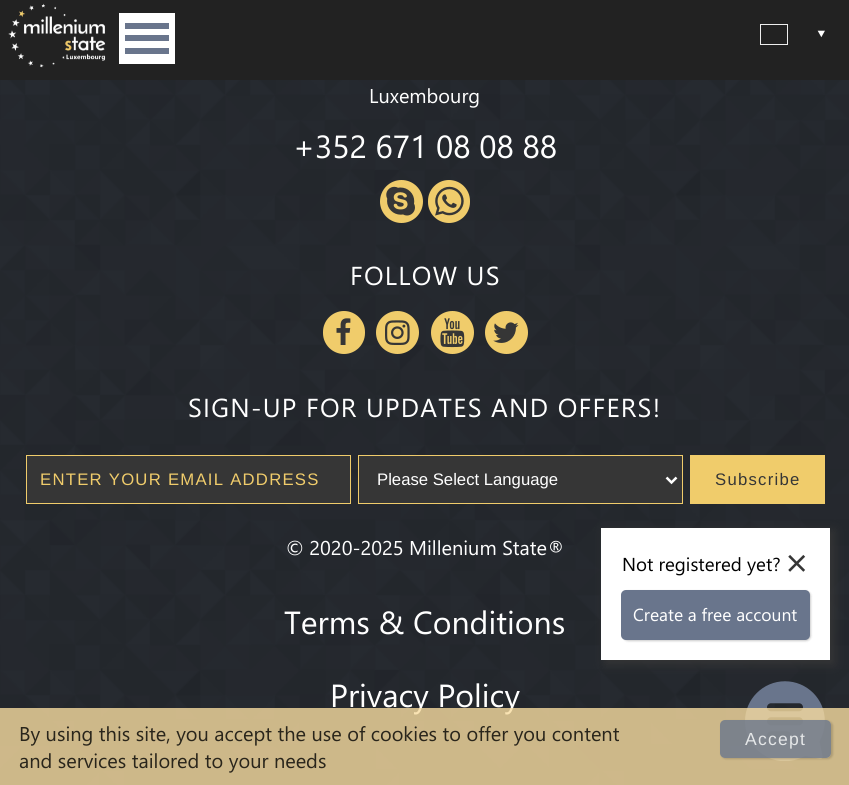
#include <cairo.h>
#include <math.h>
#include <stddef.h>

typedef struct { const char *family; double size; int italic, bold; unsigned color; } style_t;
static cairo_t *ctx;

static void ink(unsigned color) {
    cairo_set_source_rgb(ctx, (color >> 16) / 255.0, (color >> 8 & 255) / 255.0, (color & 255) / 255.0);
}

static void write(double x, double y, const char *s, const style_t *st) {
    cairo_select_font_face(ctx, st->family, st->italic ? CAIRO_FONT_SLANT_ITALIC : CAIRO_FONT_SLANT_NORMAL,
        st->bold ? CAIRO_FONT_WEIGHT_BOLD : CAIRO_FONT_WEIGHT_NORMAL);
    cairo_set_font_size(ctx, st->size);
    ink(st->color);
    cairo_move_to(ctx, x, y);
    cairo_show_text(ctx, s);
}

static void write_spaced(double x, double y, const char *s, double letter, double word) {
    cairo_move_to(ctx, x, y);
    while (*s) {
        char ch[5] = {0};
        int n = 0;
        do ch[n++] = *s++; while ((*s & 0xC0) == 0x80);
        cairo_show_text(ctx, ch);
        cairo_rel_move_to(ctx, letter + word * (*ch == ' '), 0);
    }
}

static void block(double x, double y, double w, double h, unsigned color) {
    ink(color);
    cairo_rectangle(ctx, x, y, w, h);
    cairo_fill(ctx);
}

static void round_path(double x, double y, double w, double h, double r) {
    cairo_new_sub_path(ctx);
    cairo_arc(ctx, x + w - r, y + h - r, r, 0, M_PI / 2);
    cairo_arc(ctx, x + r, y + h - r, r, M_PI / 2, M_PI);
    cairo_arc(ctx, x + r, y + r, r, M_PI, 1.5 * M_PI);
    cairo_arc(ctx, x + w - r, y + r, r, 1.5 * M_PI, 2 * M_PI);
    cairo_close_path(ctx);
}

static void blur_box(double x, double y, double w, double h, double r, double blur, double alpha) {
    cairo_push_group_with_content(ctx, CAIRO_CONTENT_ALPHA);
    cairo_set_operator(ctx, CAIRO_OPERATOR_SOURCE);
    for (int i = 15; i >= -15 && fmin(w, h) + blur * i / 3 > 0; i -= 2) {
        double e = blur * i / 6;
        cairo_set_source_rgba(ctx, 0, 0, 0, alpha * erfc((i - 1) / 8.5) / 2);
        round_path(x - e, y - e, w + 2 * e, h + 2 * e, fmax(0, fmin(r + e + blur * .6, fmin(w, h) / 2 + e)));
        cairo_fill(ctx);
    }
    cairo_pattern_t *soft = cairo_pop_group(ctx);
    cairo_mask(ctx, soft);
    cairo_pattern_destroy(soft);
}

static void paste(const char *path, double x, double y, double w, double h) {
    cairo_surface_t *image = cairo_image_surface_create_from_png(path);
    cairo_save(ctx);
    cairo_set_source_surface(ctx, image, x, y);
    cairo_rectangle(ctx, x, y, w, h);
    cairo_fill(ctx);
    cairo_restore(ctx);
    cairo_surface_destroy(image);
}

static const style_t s1 = {"Noto Sans", 25, 0, 0, 0xffffff};
static const style_t s2 = {"Segoe UI", 20, 0, 0, 0xffffff};
static const style_t s3 = {"Segoe UI", 32, 0, 0, 0xffffff};
static const style_t s4 = {"Liberation Sans", 16.7, 0, 0, 0xffffff};
static const style_t s5 = {"Segoe UI", 18.75, 0, 0, 0x000000};
static const style_t s6 = {"Segoe UI", 40, 0, 0, 0x363636};
static const style_t s7 = {"Segoe UI", 17.5, 0, 0, 0xffffff};
static const style_t s8 = {"Segoe UI", 20, 0, 0, 0x29251b};

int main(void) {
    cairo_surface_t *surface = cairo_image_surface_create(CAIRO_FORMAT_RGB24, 849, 785);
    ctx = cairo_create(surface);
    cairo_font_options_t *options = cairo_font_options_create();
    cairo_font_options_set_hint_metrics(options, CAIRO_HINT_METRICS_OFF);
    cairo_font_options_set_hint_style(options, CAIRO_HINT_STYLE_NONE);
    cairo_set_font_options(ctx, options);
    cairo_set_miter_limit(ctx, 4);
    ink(0xffffff);
    cairo_paint(ctx);
    block(0, 0, 849, 80, 0x222222);
    paste("pic1.png", 8, 3, 98, 65);
    block(125, 35, 44, 6, 0x69758c);
    block(125, 13, 44, 22, 0xffffff);
    block(169, 13, 6, 28, 0xffffff);
    block(125, 41, 50, 23, 0xffffff);
    block(119, 13, 6, 51, 0xffffff);
    block(125, 23, 44, 6, 0x69758c);
    block(125, 48, 44, 6, 0x69758c);
    cairo_rectangle(ctx, 760.5, 24.5, 27, 20);
    ink(0xeeeeee);
    cairo_set_line_width(ctx, 1);
    cairo_stroke(ctx);
    cairo_save(ctx);
    cairo_translate(ctx, 812, 29);
    cairo_rotate(ctx, 90 * M_PI / 180);
    write(0, 0, "‣", &s1);
    cairo_restore(ctx);
    paste("pic2.png", 0, 80, 849, 705);
    write(369, 103, "Luxembourg", &s2);
    write(293, 158, "+352 671 08 08 88", &s3);
    ink(0xf0cc6b);
    cairo_new_path(ctx);
    cairo_arc(ctx, 401.5, 201.5, 21.5, 0, 2 * M_PI);
    cairo_fill(ctx);
    paste("pic3.png", 386, 186, 29, 30);
    round_path(428, 180, 42, 43, 21);
    cairo_fill(ctx);
    paste("pic4.png", 435, 186, 29, 30);
    cairo_set_font_size(ctx, 26);
    ink(0xffffff);
    write_spaced(350, 285, "FOLLOW US", 1.25, 0);
    ink(0xf0cc6b);
    round_path(323, 311, 42, 43, 21);
    cairo_fill(ctx);
    paste("pic5.png", 336, 318, 15, 27);
    cairo_arc(ctx, 397.5, 332.5, 21.5, 0, 2 * M_PI);
    cairo_fill(ctx);
    paste("pic6.png", 385, 320, 25, 25);
    cairo_arc(ctx, 452.5, 332.5, 21.5, 0, 2 * M_PI);
    cairo_fill(ctx);
    paste("pic7.png", 440, 318, 25, 30);
    cairo_arc(ctx, 506.5, 332.5, 21.5, 0, 2 * M_PI);
    cairo_fill(ctx);
    paste("pic8.png", 493, 322, 26, 21);
    ink(0xffffff);
    write_spaced(188, 417, "SIGN-UP FOR UPDATES AND OFFERS!", 1.25, 0);
    ink(0x363636);
    cairo_rectangle(ctx, 26.5, 455.5, 324, 48);
    cairo_fill_preserve(ctx);
    ink(0xf0cc6b);
    cairo_stroke(ctx);
    cairo_select_font_face(ctx, "Liberation Sans", CAIRO_FONT_SLANT_NORMAL, CAIRO_FONT_WEIGHT_NORMAL);
    cairo_set_font_size(ctx, 16.7);
    write_spaced(40, 485, "ENTER YOUR EMAIL ADDRESS", 1.25, 0);
    ink(0x363636);
    cairo_rectangle(ctx, 358.5, 455.5, 324, 48);
    cairo_fill_preserve(ctx);
    ink(0xf0cc6b);
    cairo_stroke(ctx);
    cairo_new_path(ctx);
    cairo_move_to(ctx, 666.5, 477.5);
    cairo_line_to(ctx, 671.5, 482.5);
    cairo_line_to(ctx, 676.5, 477.5);
    ink(0xffffff);
    cairo_set_line_width(ctx, 2.5);
    cairo_stroke(ctx);
    write(377, 485, "Please Select Language", &s4);
    block(690, 455, 135, 49, 0xf0cc6b);
    ink(0x363636);
    write_spaced(715, 485, "Subscribe", 1.25, 0);
    write(286, 555, "© 2020-2025 Millenium State®", &s2);
    write(284, 634, "Terms & Conditions", &s3);
    write(330, 707, "Privacy Policy", &s3);
    paste("pic9.png", 745, 681, 80, 80);
    ink(0x363636);
    blur_box(605, 531, 229, 133, 0, 5.5, 1);
    block(601, 528, 229, 132, 0xffffff);
    write(622, 571, "Not registered yet?", &s5);
    write(783, 575, "×", &s6);
    ink(0x000000);
    blur_box(623, 591, 188, 50, 5, 1, 0.2);
    ink(0x69758c);
    round_path(621, 590, 189, 50, 5);
    cairo_fill(ctx);
    write(633, 621, "Create a free account", &s7);
    cairo_set_source_rgba(ctx, 0.969, 0.863, 0.627, 0.8);
    cairo_rectangle(ctx, 0, 708, 849, 77);
    cairo_fill(ctx);
    write(19, 741, "By using this site, you accept the use of cookies to offer you content", &s8);
    write(19, 768, "and services tailored to your needs", &s8);
    cairo_save(ctx);
    cairo_set_fill_rule(ctx, CAIRO_FILL_RULE_EVEN_ODD);
    cairo_new_path(ctx);
    cairo_move_to(ctx, 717, 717);
    cairo_line_to(ctx, 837, 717);
    cairo_line_to(ctx, 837, 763);
    cairo_line_to(ctx, 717, 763);
    cairo_close_path(ctx);
    cairo_move_to(ctx, 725, 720);
    cairo_line_to(ctx, 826, 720);
    cairo_curve_to(ctx, 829, 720, 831, 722, 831, 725);
    cairo_line_to(ctx, 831, 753);
    cairo_curve_to(ctx, 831, 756, 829, 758, 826, 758);
    cairo_line_to(ctx, 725, 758);
    cairo_curve_to(ctx, 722, 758, 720, 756, 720, 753);
    cairo_line_to(ctx, 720, 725);
    cairo_curve_to(ctx, 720, 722, 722, 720, 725, 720);
    cairo_close_path(ctx);
    cairo_clip(ctx);
    ink(0x000000);
    blur_box(721, 721, 112, 38, 5, 1, 0.16);
    cairo_restore(ctx);
    cairo_set_source_rgba(ctx, 0.412, 0.459, 0.549, 0.8);
    round_path(720, 720, 111, 38, 5);
    cairo_fill(ctx);
    cairo_select_font_face(ctx, "Liberation Sans", CAIRO_FONT_SLANT_NORMAL, CAIRO_FONT_WEIGHT_NORMAL);
    cairo_set_font_size(ctx, 17.5);
    ink(0xe5e7e8);
    write_spaced(745, 745, "Accept", 1.25, 0);
    cairo_surface_write_to_png(surface, "screenshot.png");
    cairo_font_options_destroy(options);
    cairo_destroy(ctx);
    cairo_surface_destroy(surface);
    return 0;
}
